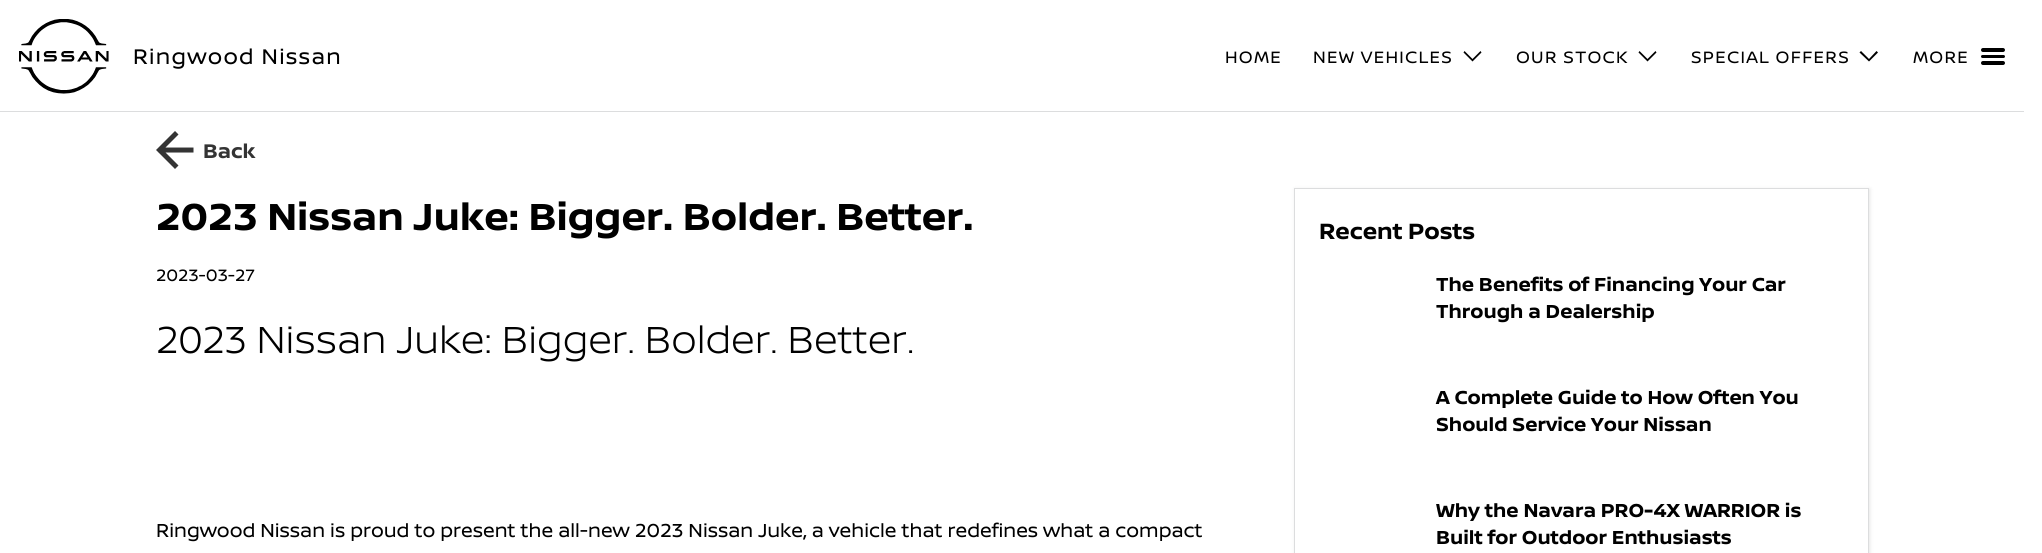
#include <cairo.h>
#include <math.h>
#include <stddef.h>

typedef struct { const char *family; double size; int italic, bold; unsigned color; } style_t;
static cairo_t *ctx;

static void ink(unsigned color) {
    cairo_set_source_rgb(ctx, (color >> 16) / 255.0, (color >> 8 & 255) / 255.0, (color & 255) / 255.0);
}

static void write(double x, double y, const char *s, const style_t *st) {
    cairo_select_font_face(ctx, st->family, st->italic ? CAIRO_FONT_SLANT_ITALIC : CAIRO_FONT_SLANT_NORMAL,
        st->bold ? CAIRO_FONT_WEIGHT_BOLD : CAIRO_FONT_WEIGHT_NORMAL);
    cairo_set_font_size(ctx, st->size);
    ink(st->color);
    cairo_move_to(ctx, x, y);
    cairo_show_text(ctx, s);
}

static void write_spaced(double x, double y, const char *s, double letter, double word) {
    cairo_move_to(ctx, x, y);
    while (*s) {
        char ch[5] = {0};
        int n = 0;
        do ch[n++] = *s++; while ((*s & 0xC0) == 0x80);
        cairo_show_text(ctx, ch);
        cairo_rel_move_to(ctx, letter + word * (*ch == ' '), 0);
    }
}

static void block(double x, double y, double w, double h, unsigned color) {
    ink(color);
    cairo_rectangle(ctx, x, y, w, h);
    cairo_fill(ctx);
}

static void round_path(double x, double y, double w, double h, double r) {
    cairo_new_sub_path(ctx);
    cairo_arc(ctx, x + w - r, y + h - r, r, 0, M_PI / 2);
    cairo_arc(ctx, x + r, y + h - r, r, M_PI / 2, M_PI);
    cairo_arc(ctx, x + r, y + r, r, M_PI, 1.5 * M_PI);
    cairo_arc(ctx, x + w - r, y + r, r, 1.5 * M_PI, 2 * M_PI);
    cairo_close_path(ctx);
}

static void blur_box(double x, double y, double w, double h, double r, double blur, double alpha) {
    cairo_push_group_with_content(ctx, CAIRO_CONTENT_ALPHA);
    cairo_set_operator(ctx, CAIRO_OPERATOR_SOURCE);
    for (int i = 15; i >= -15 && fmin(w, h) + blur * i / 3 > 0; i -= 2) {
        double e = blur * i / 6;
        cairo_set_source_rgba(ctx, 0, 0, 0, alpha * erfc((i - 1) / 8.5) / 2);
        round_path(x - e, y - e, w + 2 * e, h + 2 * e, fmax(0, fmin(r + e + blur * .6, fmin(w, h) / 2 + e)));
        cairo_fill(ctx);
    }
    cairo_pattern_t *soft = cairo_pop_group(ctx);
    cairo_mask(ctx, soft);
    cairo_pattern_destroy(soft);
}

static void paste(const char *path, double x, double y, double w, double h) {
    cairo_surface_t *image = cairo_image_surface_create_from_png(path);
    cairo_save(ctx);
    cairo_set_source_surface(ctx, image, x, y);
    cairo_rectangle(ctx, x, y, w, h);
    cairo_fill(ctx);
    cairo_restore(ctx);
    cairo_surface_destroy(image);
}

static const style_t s1 = {"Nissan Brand", 21, 0, 1, 0x343434};
static const style_t s2 = {"Nissan Brand", 40, 0, 1, 0x000000};
static const style_t s3 = {"Nissan Brand", 17.5, 0, 0, 0x000000};
static const style_t s4 = {"Nissan Brand Light", 40, 0, 0, 0x000000};
static const style_t s5 = {"Nissan Brand", 20, 0, 0, 0x000000};
static const style_t s6 = {"Nissan Brand", 23.5, 0, 1, 0x000000};
static const style_t s7 = {"Nissan Brand", 20, 0, 1, 0x000000};

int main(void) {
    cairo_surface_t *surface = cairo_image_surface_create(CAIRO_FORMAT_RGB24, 2042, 553);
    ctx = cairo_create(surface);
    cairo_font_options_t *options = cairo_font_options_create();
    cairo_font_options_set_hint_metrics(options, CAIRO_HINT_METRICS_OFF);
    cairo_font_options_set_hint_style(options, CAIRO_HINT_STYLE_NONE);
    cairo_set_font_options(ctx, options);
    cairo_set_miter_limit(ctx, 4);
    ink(0xffffff);
    cairo_paint(ctx);
    block(0, 111, 2024, 1, 0xdcddde);
    paste("pic1.png", 19, 19, 90, 75);
    cairo_select_font_face(ctx, "Nissan Brand", CAIRO_FONT_SLANT_NORMAL, CAIRO_FONT_WEIGHT_NORMAL);
    cairo_set_font_size(ctx, 22.5);
    ink(0x000000);
    write_spaced(133, 64, "Ringwood Nissan", 1.25, 0);
    cairo_set_font_size(ctx, 17.5);
    write_spaced(1225, 63, "HOME", 1.25, 0);
    write_spaced(1313, 63, "NEW VEHICLES", 1.25, 0);
    cairo_new_path(ctx);
    cairo_move_to(ctx, 1472.5, 61.5);
    cairo_line_to(ctx, 1463.5, 52.5);
    cairo_line_to(ctx, 1464.5, 51);
    cairo_line_to(ctx, 1472.5, 59);
    cairo_line_to(ctx, 1480.5, 51);
    cairo_line_to(ctx, 1481.5, 52.5);
    cairo_close_path(ctx);
    cairo_fill(ctx);
    write_spaced(1516, 63, "OUR STOCK", 1.25, 0);
    cairo_new_path(ctx);
    cairo_move_to(ctx, 1647.5, 61.5);
    cairo_line_to(ctx, 1638.5, 52.5);
    cairo_line_to(ctx, 1639.5, 51);
    cairo_line_to(ctx, 1647.5, 59);
    cairo_line_to(ctx, 1655.5, 51);
    cairo_line_to(ctx, 1656.5, 52.5);
    cairo_close_path(ctx);
    cairo_fill(ctx);
    write_spaced(1691, 63, "SPECIAL OFFERS", 1.25, 0);
    cairo_new_path(ctx);
    cairo_move_to(ctx, 1869, 61.5);
    cairo_line_to(ctx, 1859.5, 52.5);
    cairo_line_to(ctx, 1861, 51);
    cairo_line_to(ctx, 1869, 59);
    cairo_line_to(ctx, 1876.5, 51);
    cairo_line_to(ctx, 1878, 52.5);
    cairo_close_path(ctx);
    cairo_fill(ctx);
    write_spaced(1913, 63, "MORE", 1.25, 0);
    round_path(1981, 48, 24, 4, 2);
    cairo_fill(ctx);
    round_path(1981, 55, 24, 3, 1.5);
    cairo_fill(ctx);
    round_path(1981, 61, 24, 4, 2);
    cairo_fill(ctx);
    ink(0x343434);
    cairo_new_path(ctx);
    cairo_move_to(ctx, 193.5, 147.5);
    cairo_line_to(ctx, 165.5, 147.5);
    cairo_line_to(ctx, 178.5, 134.5);
    cairo_line_to(ctx, 175, 131);
    cairo_line_to(ctx, 156, 150);
    cairo_line_to(ctx, 175, 169);
    cairo_line_to(ctx, 178.5, 165.5);
    cairo_line_to(ctx, 165.5, 152.5);
    cairo_line_to(ctx, 193.5, 152.5);
    cairo_close_path(ctx);
    cairo_fill(ctx);
    write(203, 158, "Back", &s1);
    write(156, 230, "2023 Nissan Juke: Bigger. Bolder. Better.", &s2);
    write(156, 281, "2023-03-27", &s3);
    write(156, 353, "2023 Nissan Juke: Bigger. Bolder. Better.", &s4);
    write(156, 537, "Ringwood Nissan is proud to present the all-new 2023 Nissan Juke, a vehicle that redefines what a compact", &s5);
    ink(0x000000);
    blur_box(1295, 189, 575, 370, 0, 2, 0.1);
    ink(0xffffff);
    cairo_rectangle(ctx, 1294.5, 188.5, 574, 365);
    cairo_fill_preserve(ctx);
    ink(0xdcddde);
    cairo_set_line_width(ctx, 1);
    cairo_stroke(ctx);
    write(1319, 239, "Recent Posts", &s6);
    write(1436, 291, "The Benefits of Financing Your Car", &s7);
    write(1436, 318, "Through a Dealership", &s7);
    write(1436, 404, "A Complete Guide to How Often You", &s7);
    write(1436, 431, "Should Service Your Nissan", &s7);
    write(1436, 517, "Why the Navara PRO-4X WARRIOR is", &s7);
    write(1436, 544, "Built for Outdoor Enthusiasts", &s7);
    cairo_surface_write_to_png(surface, "screenshot.png");
    cairo_font_options_destroy(options);
    cairo_destroy(ctx);
    cairo_surface_destroy(surface);
    return 0;
}
